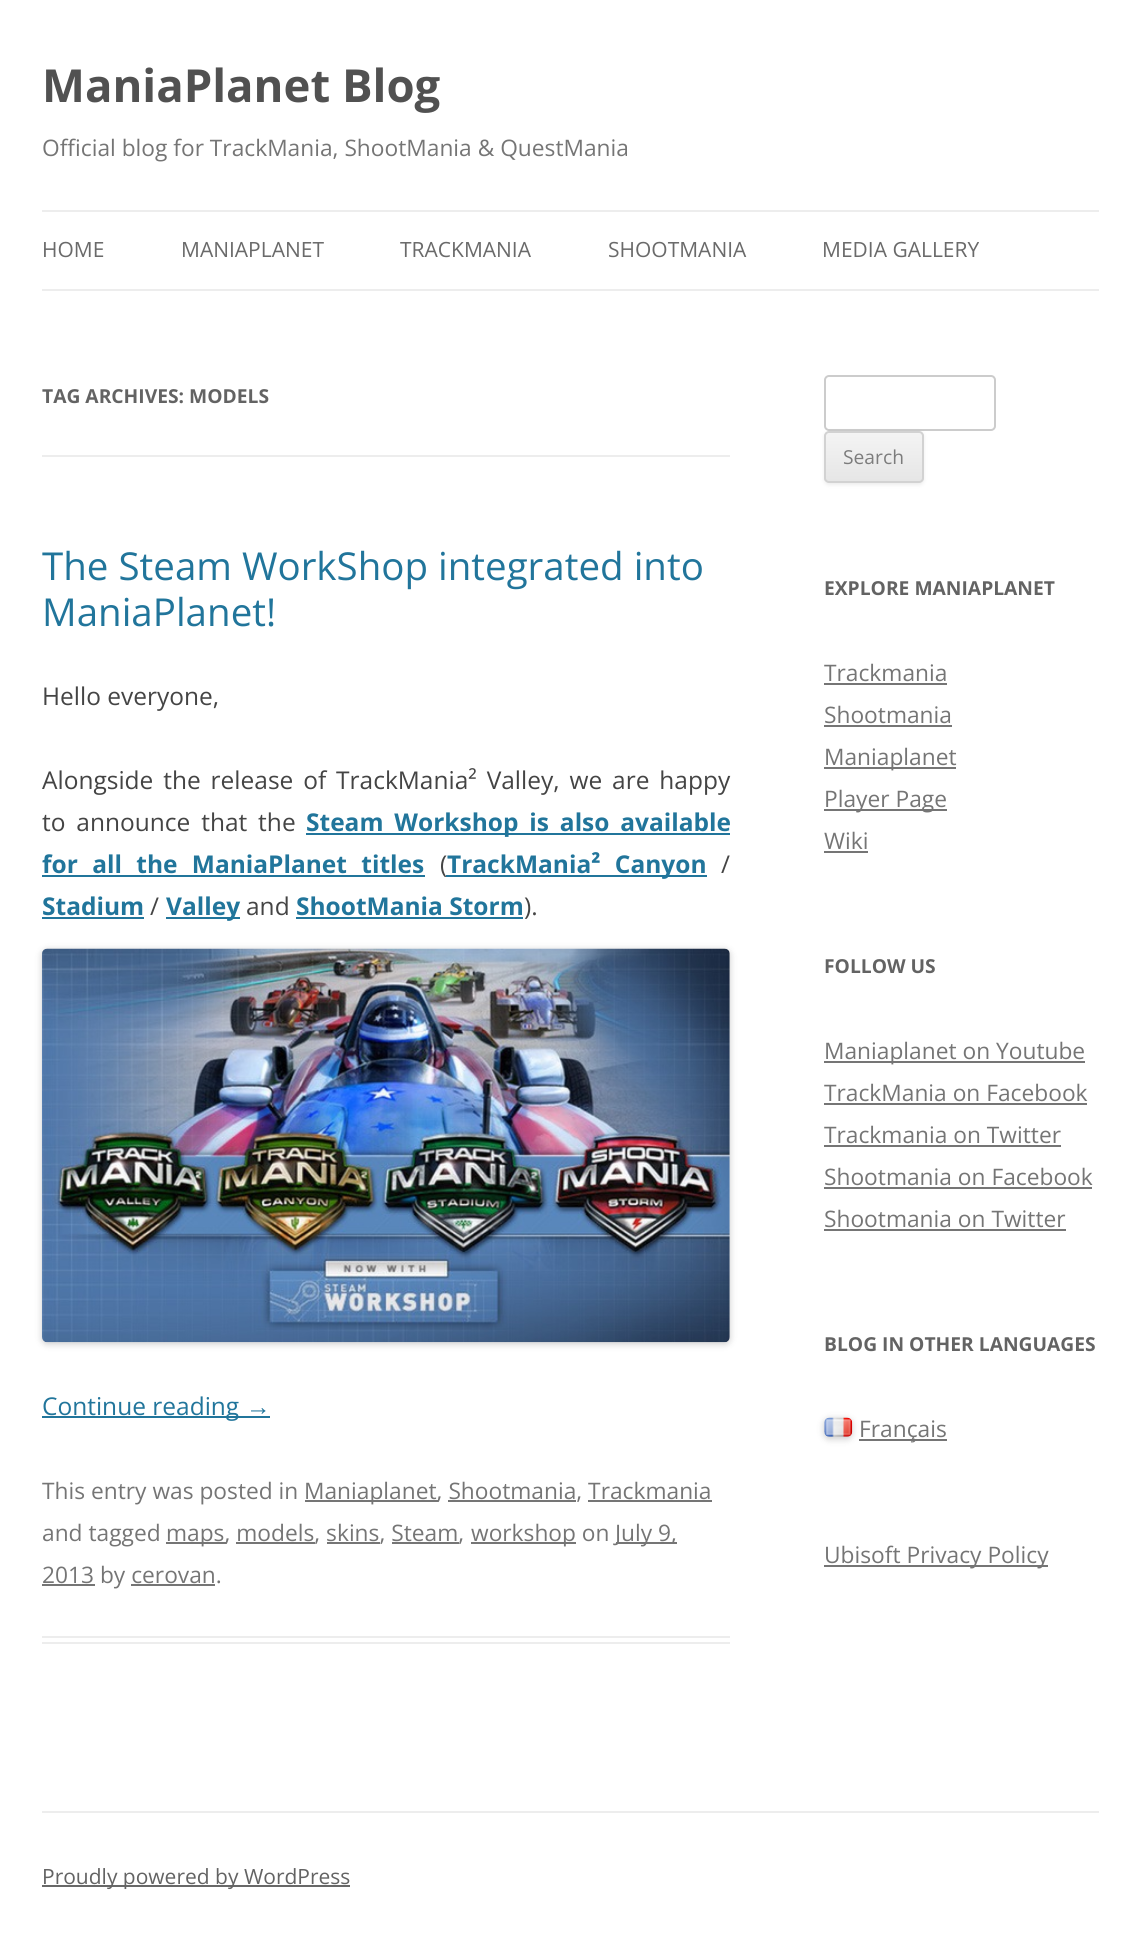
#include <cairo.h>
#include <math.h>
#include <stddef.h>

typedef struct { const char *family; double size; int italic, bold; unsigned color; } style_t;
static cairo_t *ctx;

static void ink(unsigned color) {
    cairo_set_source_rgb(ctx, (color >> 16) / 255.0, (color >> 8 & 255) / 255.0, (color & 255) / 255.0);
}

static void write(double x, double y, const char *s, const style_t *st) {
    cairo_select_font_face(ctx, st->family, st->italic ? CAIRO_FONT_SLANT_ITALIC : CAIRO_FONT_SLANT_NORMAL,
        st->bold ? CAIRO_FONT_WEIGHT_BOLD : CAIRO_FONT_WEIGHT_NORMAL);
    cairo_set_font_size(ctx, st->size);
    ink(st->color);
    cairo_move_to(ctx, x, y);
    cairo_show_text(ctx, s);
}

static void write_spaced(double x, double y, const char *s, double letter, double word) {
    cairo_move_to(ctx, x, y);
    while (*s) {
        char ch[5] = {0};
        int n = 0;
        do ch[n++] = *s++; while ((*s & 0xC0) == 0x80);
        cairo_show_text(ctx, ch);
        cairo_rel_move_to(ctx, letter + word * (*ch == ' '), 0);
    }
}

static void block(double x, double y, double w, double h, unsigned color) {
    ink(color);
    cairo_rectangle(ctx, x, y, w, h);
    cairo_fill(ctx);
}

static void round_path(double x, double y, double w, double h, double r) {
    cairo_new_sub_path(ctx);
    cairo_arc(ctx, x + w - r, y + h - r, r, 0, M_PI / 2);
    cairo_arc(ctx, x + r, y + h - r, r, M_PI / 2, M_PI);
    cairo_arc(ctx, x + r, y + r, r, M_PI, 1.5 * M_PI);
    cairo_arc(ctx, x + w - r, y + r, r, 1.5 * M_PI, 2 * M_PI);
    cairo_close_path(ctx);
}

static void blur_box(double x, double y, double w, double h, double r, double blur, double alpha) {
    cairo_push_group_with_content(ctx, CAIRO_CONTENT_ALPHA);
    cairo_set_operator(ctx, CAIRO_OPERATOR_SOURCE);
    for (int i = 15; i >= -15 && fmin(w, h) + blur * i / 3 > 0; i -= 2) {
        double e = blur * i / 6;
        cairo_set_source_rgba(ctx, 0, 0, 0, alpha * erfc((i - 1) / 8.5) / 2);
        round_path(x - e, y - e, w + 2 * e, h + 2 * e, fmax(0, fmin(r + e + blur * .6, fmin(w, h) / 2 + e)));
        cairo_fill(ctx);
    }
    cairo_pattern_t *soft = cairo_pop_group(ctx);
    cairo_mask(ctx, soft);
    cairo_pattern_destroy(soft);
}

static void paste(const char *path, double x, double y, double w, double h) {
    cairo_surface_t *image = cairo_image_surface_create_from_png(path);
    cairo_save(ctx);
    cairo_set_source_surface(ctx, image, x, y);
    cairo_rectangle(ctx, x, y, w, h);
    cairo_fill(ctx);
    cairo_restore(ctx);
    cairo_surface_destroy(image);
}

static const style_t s1 = {"Open Sans", 45.5, 0, 1, 0x515151};
static const style_t s2 = {"Open Sans", 22.75, 0, 0, 0x757575};
static const style_t s3 = {"Open Sans", 21, 0, 0, 0x6a6a6a};
static const style_t s4 = {"Open Sans", 19.25, 0, 1, 0x636363};
static const style_t s5 = {"Open Sans", 38.5, 0, 0, 0x21759b};
static const style_t s6 = {"Open Sans", 24.5, 0, 0, 0x444444};
static const style_t s7 = {"Open Sans", 24.5, 0, 1, 0x21759b};
static const style_t s8 = {"Open Sans", 24.5, 0, 0, 0x21759b};
static const style_t s9 = {"Liberation Sans", 24.5, 0, 0, 0x21759b};
static const style_t s10 = {"Open Sans", 19.25, 0, 0, 0x7c7c7c};
static const style_t s11 = {"Open Sans", 21, 0, 0, 0x636363};

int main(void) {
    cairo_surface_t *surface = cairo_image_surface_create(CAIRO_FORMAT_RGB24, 1140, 1947);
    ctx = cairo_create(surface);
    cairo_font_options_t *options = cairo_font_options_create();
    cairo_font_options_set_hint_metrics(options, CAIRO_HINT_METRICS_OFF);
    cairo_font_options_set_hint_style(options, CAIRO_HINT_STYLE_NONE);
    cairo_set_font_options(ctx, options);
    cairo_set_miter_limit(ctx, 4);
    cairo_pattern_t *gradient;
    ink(0xffffff);
    cairo_paint(ctx);
    write(42, 102, "ManiaPlanet Blog", &s1);
    write(42, 156, "Official blog for TrackMania, ShootMania & QuestMania", &s2);
    block(42, 210, 1057, 2, 0xededed);
    block(42, 289, 1057, 2, 0xededed);
    write(42, 257, "HOME", &s3);
    write(181, 257, "MANIAPLANET", &s3);
    write(400, 257, "TRACKMANIA", &s3);
    write(608, 257, "SHOOTMANIA", &s3);
    write(822, 257, "MEDIA GALLERY", &s3);
    block(42, 455, 688, 2, 0xededed);
    write(42, 403, "TAG ARCHIVES: MODELS", &s4);
    block(42, 1636, 688, 2, 0xededed);
    block(42, 1642, 688, 2, 0xededed);
    write(42, 580, "The Steam WorkShop integrated into", &s5);
    write(42, 626, "ManiaPlanet!", &s5);
    write(42, 705, "Hello everyone,", &s6);
    write_spaced(42, 789, "Alongside the release of TrackMania² Valley, we are happy", 0, 3.5);
    write_spaced(42, 831, "to announce that the", 0, 4.5);
    block(306, 833, 424, 2, 0x21759b);
    cairo_select_font_face(ctx, "Open Sans", CAIRO_FONT_SLANT_NORMAL, CAIRO_FONT_WEIGHT_BOLD);
    write_spaced(306, 831, "Steam Workshop is also available", 0, 4.5);
    write_spaced(42, 873, "for all the ManiaPlanet titles", 0, 8);
    block(42, 875, 383, 2, 0x21759b);
    write(440, 873, "(", &s6);
    block(446, 875, 261, 2, 0x21759b);
    cairo_select_font_face(ctx, "Open Sans", CAIRO_FONT_SLANT_NORMAL, CAIRO_FONT_WEIGHT_BOLD);
    write_spaced(447, 873, "TrackMania² Canyon", 0, 8);
    write(721, 873, "/", &s6);
    write(42, 915, "Stadium", &s7);
    block(42, 917, 102, 2, 0x21759b);
    write(150, 915, "/", &s6);
    block(166, 917, 74, 2, 0x21759b);
    write(166, 915, "Valley", &s7);
    write(246, 915, "and", &s6);
    write(296, 915, "ShootMania Storm", &s7);
    block(296, 917, 227, 2, 0x21759b);
    write(524, 915, ").", &s6);
    ink(0x000000);
    blur_box(42, 950, 688, 394, 5, 3.5, 0.2);
    paste("pic1.png", 42, 948, 688, 395);
    block(42, 1416, 228, 2, 0x21759b);
    write(42, 1415, "Continue reading", &s8);
    write(246, 1415, "→", &s9);
    write(42, 1499, "This entry was posted in", &s2);
    block(305, 1500, 133, 2, 0x757575);
    write(304, 1499, "Maniaplanet, Shootmania, Trackmania", &s2);
    block(448, 1500, 128, 2, 0x757575);
    block(588, 1500, 124, 2, 0x757575);
    write(42, 1541, "and tagged", &s2);
    block(166, 1542, 60, 2, 0x757575);
    write(166, 1541, "maps, models, skins, Steam,", &s2);
    block(471, 1542, 105, 2, 0x757575);
    write(471, 1541, "workshop on", &s2);
    block(616, 1542, 61, 2, 0x757575);
    write(615, 1541, "July 9,", &s2);
    block(236, 1542, 79, 2, 0x757575);
    block(327, 1542, 53, 2, 0x757575);
    block(392, 1542, 67, 2, 0x757575);
    block(42, 1584, 53, 2, 0x757575);
    write(42, 1583, "2013 by cerovan.", &s2);
    block(131, 1584, 84, 2, 0x757575);
    round_path(825, 376, 170, 54, 4);
    ink(0xcccccc);
    cairo_stroke(ctx);
    ink(0x404040);
    blur_box(824, 432, 100, 53, 5, 2, 0.1);
    cairo_save(ctx);
    round_path(824, 431, 100, 52, 5);
    cairo_clip(ctx);
    gradient = cairo_pattern_create_linear(874, 432, 874, 481);
    cairo_pattern_add_color_stop_rgba(gradient, 0, 0.957, 0.957, 0.957, 1);
    cairo_pattern_add_color_stop_rgba(gradient, 1, 0.902, 0.902, 0.902, 1);
    cairo_set_source(ctx, gradient);
    cairo_pattern_destroy(gradient);
    cairo_rectangle(ctx, 824, 432, 100, 49);
    cairo_fill(ctx);
    cairo_restore(ctx);
    round_path(825, 432, 98, 50, 4);
    ink(0xd2d2d2);
    cairo_stroke(ctx);
    write(843, 464, "Search", &s10);
    write(824, 595, "EXPLORE MANIAPLANET", &s4);
    write(824, 681, "Trackmania", &s2);
    block(824, 683, 123, 2, 0x757575);
    write(824, 723, "Shootmania", &s2);
    block(824, 725, 128, 2, 0x757575);
    block(824, 767, 132, 2, 0x757575);
    write(824, 765, "Maniaplanet", &s2);
    block(824, 809, 123, 2, 0x757575);
    write(824, 807, "Player Page", &s2);
    write(824, 849, "Wiki", &s2);
    block(824, 851, 44, 2, 0x757575);
    write(824, 973, "FOLLOW US", &s4);
    block(824, 1061, 261, 2, 0x757575);
    write(824, 1059, "Maniaplanet on Youtube", &s2);
    write(824, 1101, "TrackMania on Facebook", &s2);
    block(824, 1103, 263, 2, 0x757575);
    write(824, 1143, "Trackmania on Twitter", &s2);
    block(824, 1145, 237, 2, 0x757575);
    write(824, 1185, "Shootmania on Facebook", &s2);
    block(824, 1187, 268, 2, 0x757575);
    write(824, 1227, "Shootmania on Twitter", &s2);
    block(824, 1229, 242, 2, 0x757575);
    write(824, 1351, "BLOG IN OTHER LANGUAGES", &s4);
    ink(0x000000);
    blur_box(824, 1419, 28, 20, 5, 3.5, 0.2);
    paste("pic2.png", 824, 1417, 29, 20);
    block(859, 1439, 88, 2, 0x757575);
    write(859, 1437, "Français", &s2);
    block(824, 1565, 224, 2, 0x757575);
    write(824, 1563, "Ubisoft Privacy Policy", &s2);
    block(42, 1811, 1057, 2, 0xededed);
    block(42, 1885, 308, 2, 0x686868);
    write(42, 1884, "Proudly powered by WordPress", &s11);
    cairo_surface_write_to_png(surface, "screenshot.png");
    cairo_font_options_destroy(options);
    cairo_destroy(ctx);
    cairo_surface_destroy(surface);
    return 0;
}
